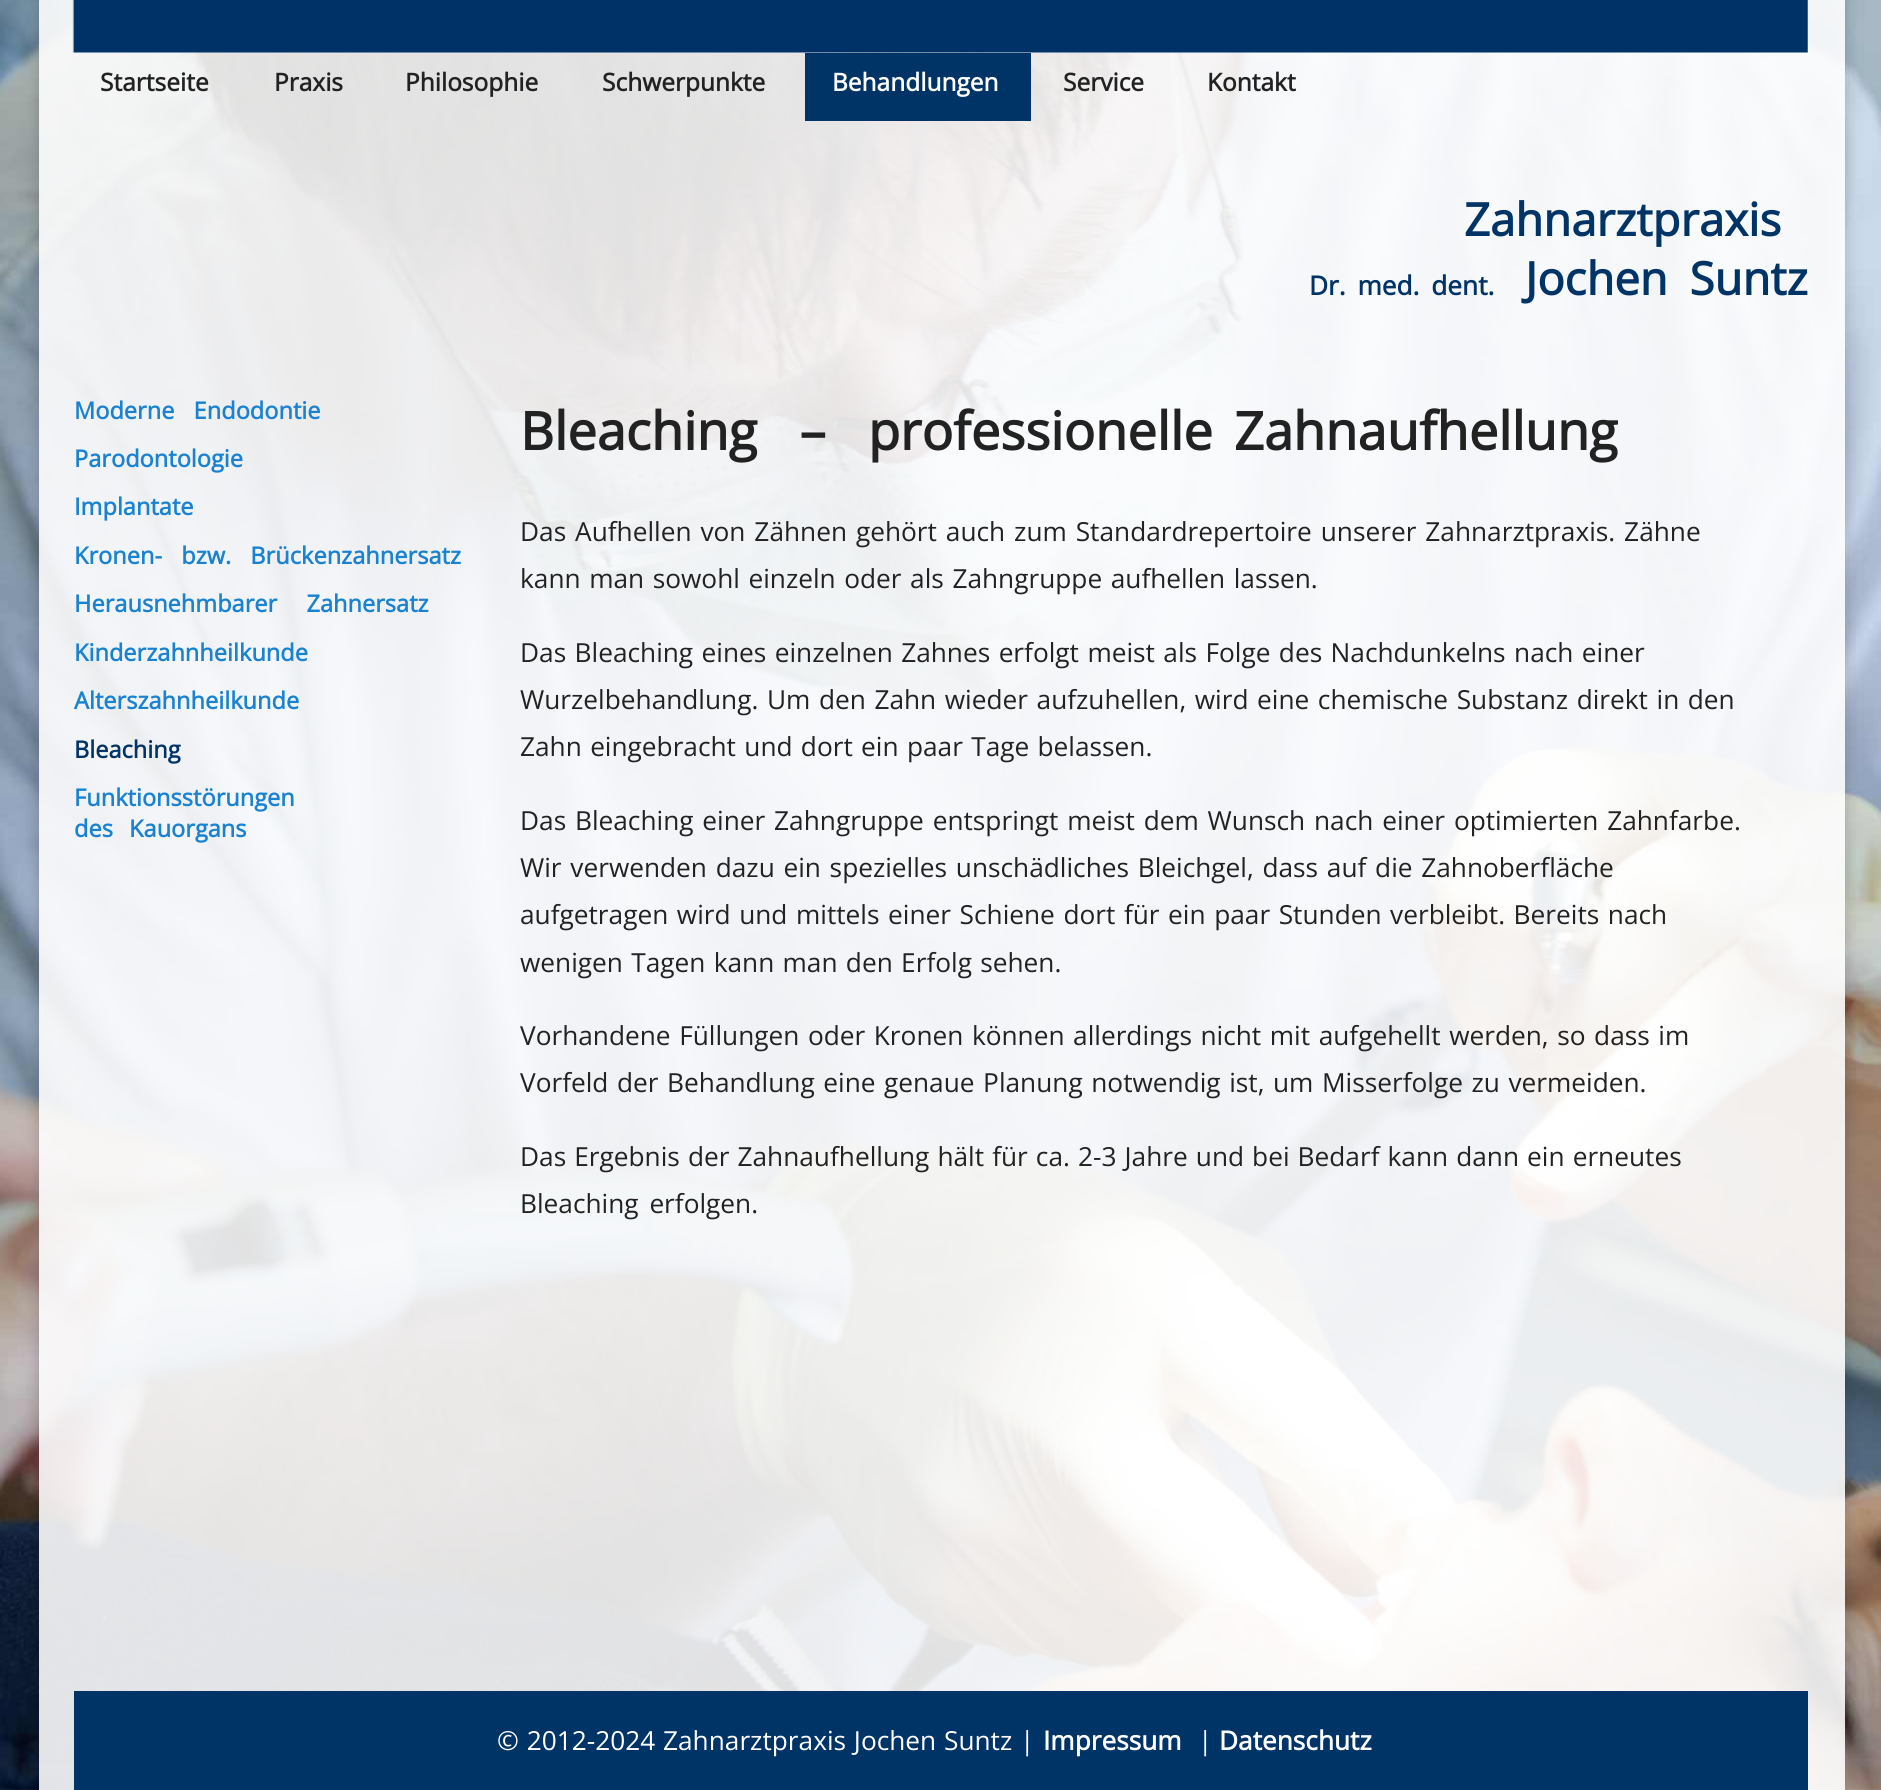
#include <cairo.h>
#include <math.h>
#include <stddef.h>

typedef struct { const char *family; double size; int italic, bold; unsigned color; } style_t;
static cairo_t *ctx;

static void ink(unsigned color) {
    cairo_set_source_rgb(ctx, (color >> 16) / 255.0, (color >> 8 & 255) / 255.0, (color & 255) / 255.0);
}

static void write(double x, double y, const char *s, const style_t *st) {
    cairo_select_font_face(ctx, st->family, st->italic ? CAIRO_FONT_SLANT_ITALIC : CAIRO_FONT_SLANT_NORMAL,
        st->bold ? CAIRO_FONT_WEIGHT_BOLD : CAIRO_FONT_WEIGHT_NORMAL);
    cairo_set_font_size(ctx, st->size);
    ink(st->color);
    cairo_move_to(ctx, x, y);
    cairo_show_text(ctx, s);
}

static void write_spaced(double x, double y, const char *s, double letter, double word) {
    cairo_move_to(ctx, x, y);
    while (*s) {
        char ch[5] = {0};
        int n = 0;
        do ch[n++] = *s++; while ((*s & 0xC0) == 0x80);
        cairo_show_text(ctx, ch);
        cairo_rel_move_to(ctx, letter + word * (*ch == ' '), 0);
    }
}

static void block(double x, double y, double w, double h, unsigned color) {
    ink(color);
    cairo_rectangle(ctx, x, y, w, h);
    cairo_fill(ctx);
}

static void round_path(double x, double y, double w, double h, double r) {
    cairo_new_sub_path(ctx);
    cairo_arc(ctx, x + w - r, y + h - r, r, 0, M_PI / 2);
    cairo_arc(ctx, x + r, y + h - r, r, M_PI / 2, M_PI);
    cairo_arc(ctx, x + r, y + r, r, M_PI, 1.5 * M_PI);
    cairo_arc(ctx, x + w - r, y + r, r, 1.5 * M_PI, 2 * M_PI);
    cairo_close_path(ctx);
}

static void blur_box(double x, double y, double w, double h, double r, double blur, double alpha) {
    cairo_push_group_with_content(ctx, CAIRO_CONTENT_ALPHA);
    cairo_set_operator(ctx, CAIRO_OPERATOR_SOURCE);
    for (int i = 15; i >= -15 && fmin(w, h) + blur * i / 3 > 0; i -= 2) {
        double e = blur * i / 6;
        cairo_set_source_rgba(ctx, 0, 0, 0, alpha * erfc((i - 1) / 8.5) / 2);
        round_path(x - e, y - e, w + 2 * e, h + 2 * e, fmax(0, fmin(r + e + blur * .6, fmin(w, h) / 2 + e)));
        cairo_fill(ctx);
    }
    cairo_pattern_t *soft = cairo_pop_group(ctx);
    cairo_mask(ctx, soft);
    cairo_pattern_destroy(soft);
}

static void paste(const char *path, double x, double y, double w, double h) {
    cairo_surface_t *image = cairo_image_surface_create_from_png(path);
    cairo_save(ctx);
    cairo_set_source_surface(ctx, image, x, y);
    cairo_rectangle(ctx, x, y, w, h);
    cairo_fill(ctx);
    cairo_restore(ctx);
    cairo_surface_destroy(image);
}

static const style_t s1 = {"Open Sans", 24.5, 0, 1, 0x222222};
static const style_t s2 = {"Open Sans", 24.5, 0, 1, 0xffffff};
static const style_t s3 = {"Open Sans", 45.5, 0, 1, 0x003366};
static const style_t s4 = {"Open Sans", 23.6, 0, 1, 0x1982d1};
static const style_t s5 = {"Open Sans", 23.6, 0, 1, 0x003366};
static const style_t s6 = {"Open Sans", 26.25, 0, 1, 0xffffff};
static const style_t s7 = {"Open Sans", 26.25, 0, 0, 0xffffff};

int main(void) {
    cairo_surface_t *surface = cairo_image_surface_create(CAIRO_FORMAT_RGB24, 1881, 1790);
    ctx = cairo_create(surface);
    cairo_font_options_t *options = cairo_font_options_create();
    cairo_font_options_set_hint_metrics(options, CAIRO_HINT_METRICS_OFF);
    cairo_font_options_set_hint_style(options, CAIRO_HINT_STYLE_NONE);
    cairo_set_font_options(ctx, options);
    cairo_set_miter_limit(ctx, 4);
    ink(0xffffff);
    cairo_paint(ctx);
    paste("pic1.png", 0, 0, 1881, 1790);
    cairo_save(ctx);
    cairo_set_fill_rule(ctx, CAIRO_FILL_RULE_EVEN_ODD);
    cairo_new_path(ctx);
    cairo_move_to(ctx, 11, 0);
    cairo_line_to(ctx, 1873, 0);
    cairo_line_to(ctx, 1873, 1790);
    cairo_line_to(ctx, 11, 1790);
    cairo_close_path(ctx);
    cairo_move_to(ctx, 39, 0);
    cairo_line_to(ctx, 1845, 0);
    cairo_line_to(ctx, 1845, 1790);
    cairo_line_to(ctx, 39, 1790);
    cairo_close_path(ctx);
    cairo_clip(ctx);
    ink(0x000000);
    blur_box(39, 0, 1806, 1790, 0, 9, 0.2);
    cairo_restore(ctx);
    cairo_set_source_rgba(ctx, 1, 1, 1, 0.88);
    cairo_rectangle(ctx, 39, 0, 1806, 1790);
    cairo_fill(ctx);
    paste("pic2.png", 72, 0, 1736, 53);
    write(100, 91, "Startseite", &s1);
    write(274, 91, "Praxis", &s1);
    write(405, 91, "Philosophie", &s1);
    write(602, 91, "Schwerpunkte", &s1);
    block(805, 53, 226, 68, 0x003366);
    write(832, 91, "Behandlungen", &s2);
    write(1063, 91, "Service", &s1);
    write(1207, 91, "Kontakt", &s1);
    write(1464, 236, "Zahnarztpraxis", &s3);
    cairo_set_font_size(ctx, 26.25);
    write_spaced(1309, 295, "Dr. med. dent.", 0, 5);
    cairo_set_font_size(ctx, 45.5);
    write_spaced(1525, 295, "Jochen Suntz", 0, 10);
    cairo_set_font_size(ctx, 23.6);
    ink(0x1982d1);
    write_spaced(74, 419, "Moderne Endodontie", 0, 13);
    write(74, 467, "Parodontologie", &s4);
    write(74, 515, "Implantate", &s4);
    write_spaced(74, 564, "Kronen- bzw. Brückenzahnersatz", 0, 13);
    write_spaced(74, 612, "Herausnehmbarer Zahnersatz", 0, 23);
    write(74, 661, "Kinderzahnheilkunde", &s4);
    write(74, 709, "Alterszahnheilkunde", &s4);
    write(74, 758, "Bleaching", &s5);
    write(74, 806, "Funktionsstörungen", &s4);
    write_spaced(74, 837, "des Kauorgans", 0, 10);
    cairo_set_font_size(ctx, 52.5);
    ink(0x222222);
    write_spaced(520, 450, "Bleaching  –  professionelle Zahnaufhellung", 0, 7.5);
    cairo_select_font_face(ctx, "Open Sans", CAIRO_FONT_SLANT_NORMAL, CAIRO_FONT_WEIGHT_NORMAL);
    cairo_set_font_size(ctx, 26.25);
    write_spaced(520, 541, "Das Aufhellen von Zähnen gehört auch zum Standardrepertoire unserer Zahnarztpraxis. Zähne", 0, 2.1);
    write_spaced(520, 588, "kann man sowohl einzeln oder als Zahngruppe aufhellen lassen.", 0, 1.75);
    write_spaced(520, 662, "Das Bleaching eines einzelnen Zahnes erfolgt meist als Folge des Nachdunkelns nach einer", 0, 1.6);
    write_spaced(520, 709, "Wurzelbehandlung. Um den Zahn wieder aufzuhellen, wird eine chemische Substanz direkt in den", 0, 1.75);
    write_spaced(520, 756, "Zahn eingebracht und dort ein paar Tage belassen.", 0, 1.5);
    write_spaced(520, 830, "Das Bleaching einer Zahngruppe entspringt meist dem Wunsch nach einer optimierten Zahnfarbe.", 0, 2);
    write_spaced(520, 877, "Wir verwenden dazu ein spezielles unschädliches Bleichgel, dass auf die Zahnoberfläche", 0, 1.9);
    write_spaced(520, 924, "aufgetragen wird und mittels einer Schiene dort für ein paar Stunden verbleibt. Bereits nach", 0, 1.75);
    write_spaced(520, 972, "wenigen Tagen kann man den Erfolg sehen.", 0, 1.5);
    write_spaced(520, 1045, "Vorhandene Füllungen oder Kronen können allerdings nicht mit aufgehellt werden, so dass im", 0, 1.75);
    write_spaced(520, 1092, "Vorfeld der Behandlung eine genaue Planung notwendig ist, um Misserfolge zu vermeiden.", 0, 1.75);
    write_spaced(520, 1166, "Das Ergebnis der Zahnaufhellung hält für ca. 2-3 Jahre und bei Bedarf kann dann ein erneutes", 0, 1.25);
    write_spaced(520, 1213, "Bleaching erfolgen.", 0, 4);
    block(74, 1691, 1734, 99, 0x003366);
    ink(0xffffff);
    write_spaced(497, 1750, "© 2012-2024 Zahnarztpraxis Jochen Suntz |", 0, 1);
    write(1043, 1750, "Impressum", &s6);
    write(1198, 1750, "|", &s7);
    write(1219, 1750, "Datenschutz", &s6);
    cairo_surface_write_to_png(surface, "screenshot.png");
    cairo_font_options_destroy(options);
    cairo_destroy(ctx);
    cairo_surface_destroy(surface);
    return 0;
}
